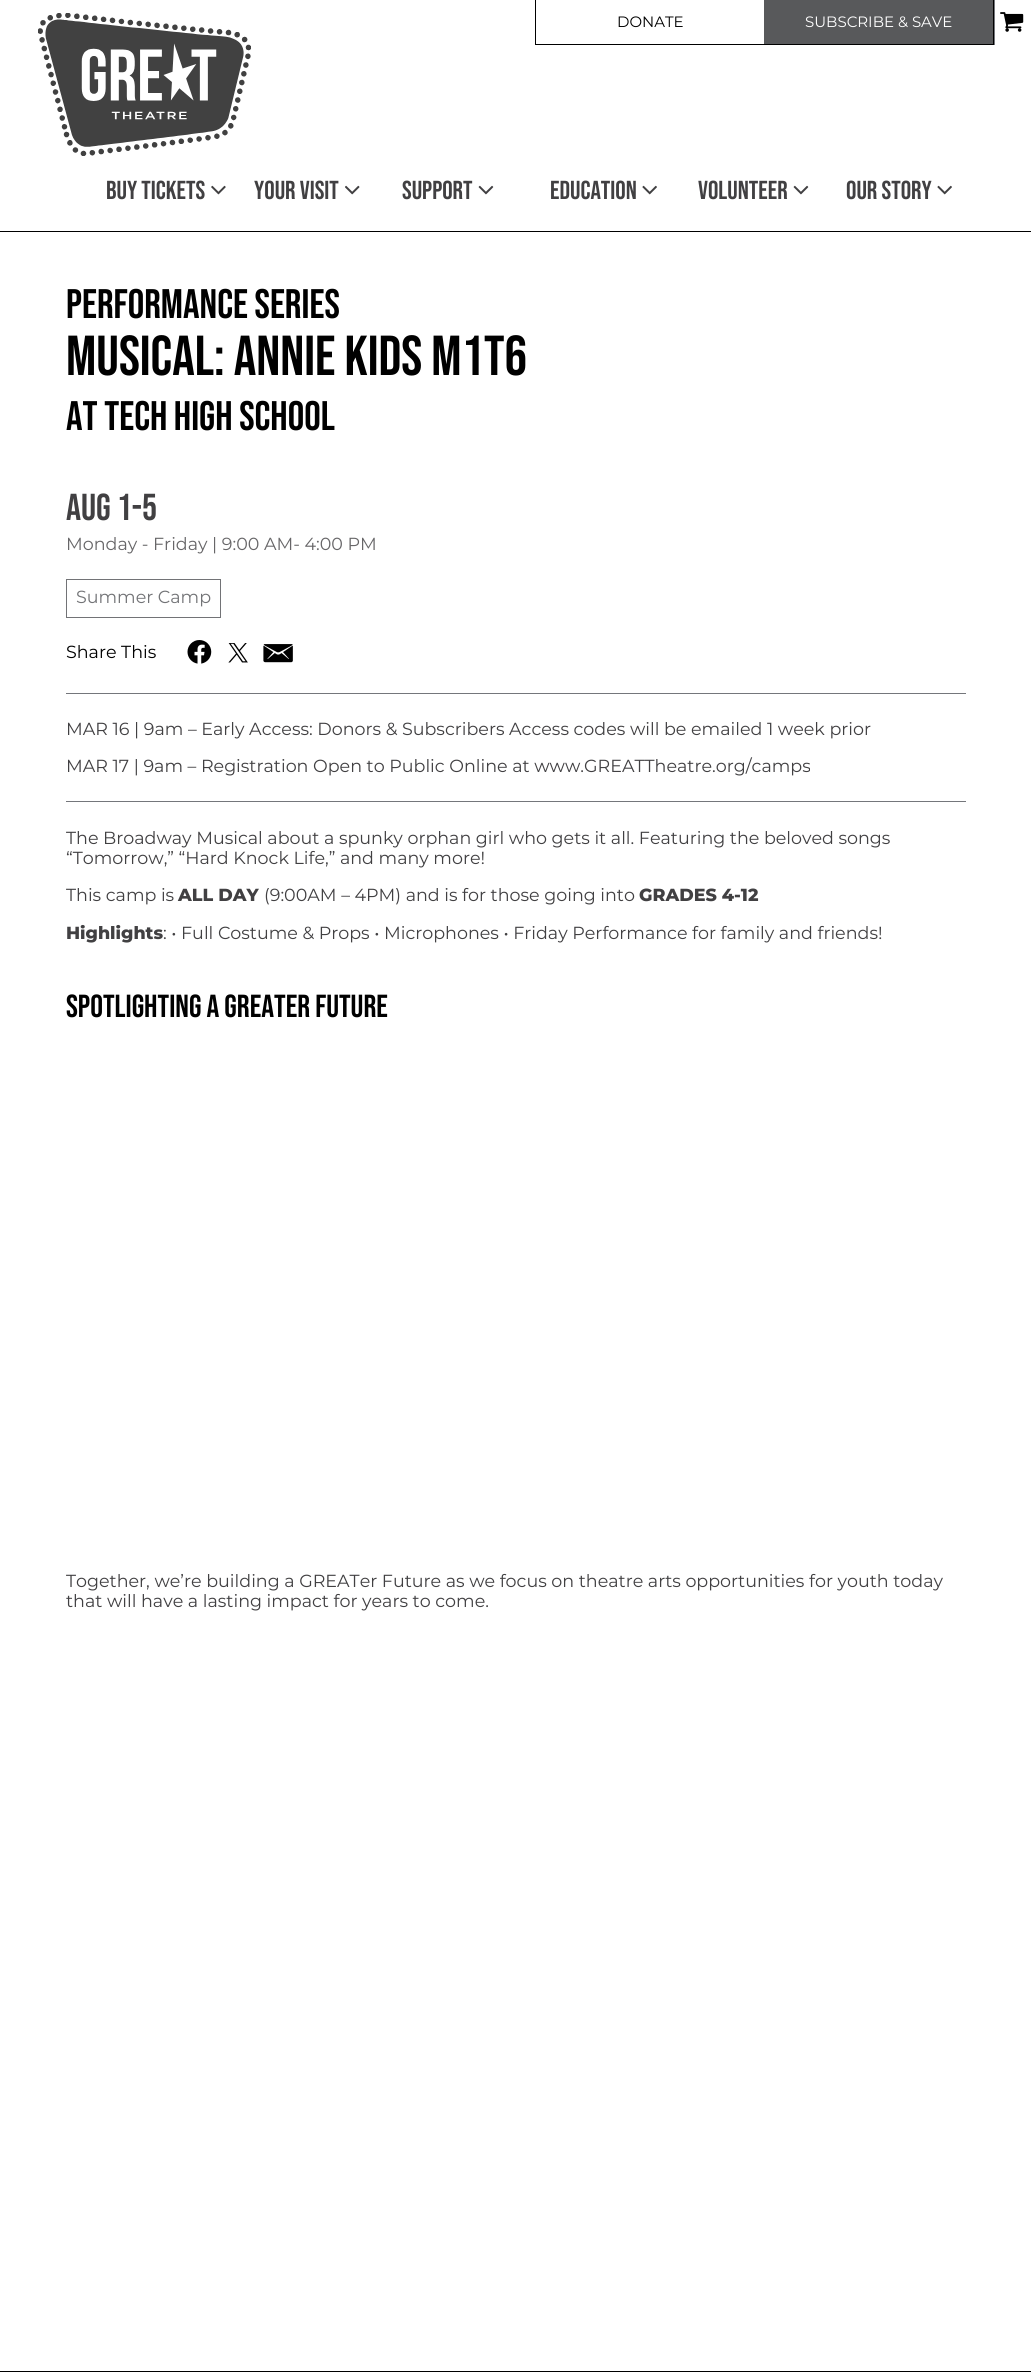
#include <cairo.h>
#include <math.h>
#include <stddef.h>

typedef struct { const char *family; double size; int italic, bold; unsigned color; } style_t;
static cairo_t *ctx;

static void ink(unsigned color) {
    cairo_set_source_rgb(ctx, (color >> 16) / 255.0, (color >> 8 & 255) / 255.0, (color & 255) / 255.0);
}

static void write(double x, double y, const char *s, const style_t *st) {
    cairo_select_font_face(ctx, st->family, st->italic ? CAIRO_FONT_SLANT_ITALIC : CAIRO_FONT_SLANT_NORMAL,
        st->bold ? CAIRO_FONT_WEIGHT_BOLD : CAIRO_FONT_WEIGHT_NORMAL);
    cairo_set_font_size(ctx, st->size);
    ink(st->color);
    cairo_move_to(ctx, x, y);
    cairo_show_text(ctx, s);
}

static void block(double x, double y, double w, double h, unsigned color) {
    ink(color);
    cairo_rectangle(ctx, x, y, w, h);
    cairo_fill(ctx);
}

static void paste(const char *path, double x, double y, double w, double h) {
    cairo_surface_t *image = cairo_image_surface_create_from_png(path);
    cairo_save(ctx);
    cairo_set_source_surface(ctx, image, x, y);
    cairo_rectangle(ctx, x, y, w, h);
    cairo_fill(ctx);
    cairo_restore(ctx);
    cairo_surface_destroy(image);
}

static const style_t s1 = {"Montserrat", 15, 0, 0, 0x000000};
static const style_t s2 = {"Montserrat", 15, 0, 0, 0xffffff};
static const style_t s3 = {"Bebas Neue", 26, 0, 0, 0x414042};
static const style_t s4 = {"Bebas Neue", 41.25, 0, 0, 0x000000};
static const style_t s5 = {"Bebas Neue", 56.25, 0, 0, 0x000000};
static const style_t s6 = {"Bebas Neue", 37.5, 0, 0, 0x414042};
static const style_t s7 = {"Montserrat", 17.5, 0, 0, 0x676668};
static const style_t s8 = {"Montserrat", 17.5, 0, 0, 0x727376};
static const style_t s9 = {"Montserrat", 17.5, 0, 0, 0x000000};
static const style_t s10 = {"Montserrat", 17.5, 0, 0, 0x414042};
static const style_t s11 = {"Montserrat ExtraBold", 17.5, 0, 0, 0x414042};
static const style_t s12 = {"Bebas Neue", 31.9, 0, 0, 0x000000};

int main(void) {
    cairo_surface_t *surface = cairo_image_surface_create(CAIRO_FORMAT_RGB24, 1031, 2376);
    ctx = cairo_create(surface);
    cairo_font_options_t *options = cairo_font_options_create();
    cairo_font_options_set_hint_metrics(options, CAIRO_HINT_METRICS_OFF);
    cairo_font_options_set_hint_style(options, CAIRO_HINT_STYLE_NONE);
    cairo_set_font_options(ctx, options);
    cairo_set_miter_limit(ctx, 4);
    ink(0xffffff);
    cairo_paint(ctx);
    block(0, 231, 1031, 1, 0x000000);
    paste("pic1.png", 38, 13, 213, 143);
    block(993, 0, 1, 45, 0x000000);
    block(535, 44, 459, 1, 0x000000);
    block(535, 0, 1, 45, 0x000000);
    write(617, 27, "DONATE", &s1);
    block(764, 0, 229, 44, 0x58595b);
    write(805, 27, "SUBSCRIBE & SAVE", &s2);
    block(994, 0, 1, 45, 0x74767b);
    paste("pic2.png", 1000, 12, 24, 20);
    write(106, 199, "BUY TICKETS", &s3);
    paste("pic3.png", 211, 185, 15, 10);
    write(254, 199, "YOUR VISIT", &s3);
    paste("pic4.png", 345, 185, 15, 10);
    write(402, 199, "SUPPORT", &s3);
    paste("pic5.png", 478, 185, 16, 10);
    write(550, 199, "EDUCATION", &s3);
    paste("pic6.png", 642, 185, 15, 10);
    write(698, 199, "VOLUNTEER", &s3);
    paste("pic5.png", 793, 185, 16, 10);
    write(846, 199, "OUR STORY", &s3);
    paste("pic6.png", 937, 185, 15, 10);
    write(66, 318, "PERFORMANCE SERIES", &s4);
    write(66, 375, "Musical: Annie KIDS M1T6", &s5);
    write(66, 430, "at Tech High School", &s4);
    block(66, 693, 900, 1, 0x74767b);
    write(66, 520, "Aug 1-5", &s6);
    write(66, 550, "Monday - Friday | 9:00 AM- 4:00 PM", &s7);
    cairo_rectangle(ctx, 66.5, 579.5, 154, 38);
    ink(0x727376);
    cairo_set_line_width(ctx, 1);
    cairo_stroke(ctx);
    write(76, 603, "Summer Camp", &s8);
    write(66, 658, "Share This", &s9);
    paste("pic7.png", 187, 640, 25, 24);
    paste("pic8.png", 228, 643, 20, 20);
    paste("pic9.png", 263, 644, 30, 19);
    write(66, 735, "MAR 16 | 9am – Early Access: Donors & Subscribers Access codes will be emailed 1 week prior", &s10);
    write(66, 772, "MAR 17 | 9am – Registration Open to Public Online at www.GREATTheatre.org/camps", &s10);
    block(66, 801, 900, 1, 0x74767b);
    write(66, 844, "The Broadway Musical about a spunky orphan girl who gets it all. Featuring the beloved songs", &s10);
    write(66, 864, "“Tomorrow,” “Hard Knock Life,” and many more!", &s10);
    write(66, 901, "This camp is", &s10);
    write(178, 901, "ALL DAY", &s11);
    write(264, 901, "(9:00AM – 4PM) and is for those going into", &s10);
    write(639, 901, "GRADES 4-12", &s11);
    write(66, 939, "Highlights", &s11);
    write(163, 939, ": • Full Costume & Props • Microphones • Friday Performance for family and friends!", &s10);
    write(66, 1017, "SPOTLIGHTING A GREATER FUTURE", &s12);
    write(66, 1587, "Together, we’re building a GREATer Future as we focus on theatre arts opportunities for youth today", &s10);
    write(66, 1607, "that will have a lasting impact for years to come.", &s10);
    block(0, 2371, 1031, 1, 0x000000);
    cairo_surface_write_to_png(surface, "screenshot.png");
    cairo_font_options_destroy(options);
    cairo_destroy(ctx);
    cairo_surface_destroy(surface);
    return 0;
}
